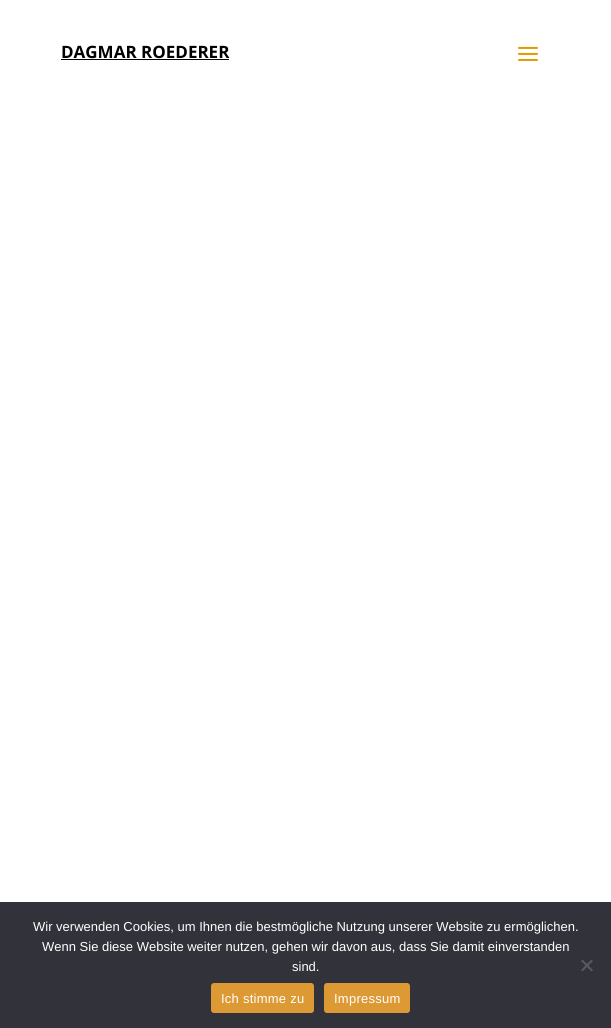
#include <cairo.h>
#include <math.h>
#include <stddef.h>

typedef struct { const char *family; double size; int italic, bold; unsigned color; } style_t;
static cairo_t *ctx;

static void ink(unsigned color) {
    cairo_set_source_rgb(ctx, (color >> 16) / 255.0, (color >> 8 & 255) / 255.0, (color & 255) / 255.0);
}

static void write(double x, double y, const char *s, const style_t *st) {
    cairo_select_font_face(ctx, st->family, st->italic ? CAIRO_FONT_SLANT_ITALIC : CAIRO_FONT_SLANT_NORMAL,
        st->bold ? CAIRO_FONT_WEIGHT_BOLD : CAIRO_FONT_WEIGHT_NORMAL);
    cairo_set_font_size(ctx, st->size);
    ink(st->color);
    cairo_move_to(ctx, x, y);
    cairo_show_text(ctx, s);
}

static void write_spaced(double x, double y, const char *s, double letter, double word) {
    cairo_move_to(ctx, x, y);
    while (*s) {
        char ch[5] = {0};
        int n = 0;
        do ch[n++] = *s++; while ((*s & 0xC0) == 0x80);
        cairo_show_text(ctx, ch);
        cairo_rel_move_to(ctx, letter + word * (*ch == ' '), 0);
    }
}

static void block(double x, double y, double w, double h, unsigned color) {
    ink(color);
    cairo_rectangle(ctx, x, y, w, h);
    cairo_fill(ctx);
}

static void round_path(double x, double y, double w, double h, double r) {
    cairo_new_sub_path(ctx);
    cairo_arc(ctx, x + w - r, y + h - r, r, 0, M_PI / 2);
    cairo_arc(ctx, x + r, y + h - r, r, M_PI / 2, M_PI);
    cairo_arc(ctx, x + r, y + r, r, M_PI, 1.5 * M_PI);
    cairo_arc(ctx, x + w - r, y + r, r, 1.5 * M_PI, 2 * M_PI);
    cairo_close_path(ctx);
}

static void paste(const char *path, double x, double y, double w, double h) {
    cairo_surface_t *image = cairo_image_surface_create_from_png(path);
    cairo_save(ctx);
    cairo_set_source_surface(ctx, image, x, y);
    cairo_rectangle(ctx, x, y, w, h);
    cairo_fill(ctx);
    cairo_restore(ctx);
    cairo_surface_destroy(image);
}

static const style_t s1 = {"Open Sans", 17, 0, 1, 0x000000};
static const style_t s2 = {"Liberation Sans", 13, 0, 0, 0xffffff};

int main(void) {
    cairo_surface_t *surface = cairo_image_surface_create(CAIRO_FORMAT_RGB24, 611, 1028);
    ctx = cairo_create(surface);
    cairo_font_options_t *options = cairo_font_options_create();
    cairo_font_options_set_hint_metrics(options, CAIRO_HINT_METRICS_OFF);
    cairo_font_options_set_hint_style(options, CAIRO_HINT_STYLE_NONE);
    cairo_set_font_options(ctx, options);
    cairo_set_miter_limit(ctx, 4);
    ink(0xffffff);
    cairo_paint(ctx);
    write(61, 58, "DAGMAR ROEDERER", &s1);
    block(61, 59, 168, 1, 0x000000);
    paste("pic1.png", 518, 46, 20, 15);
    block(0, 902, 611, 126, 0x32323a);
    write(33, 931, "Wir verwenden Cookies, um Ihnen die bestmögliche Nutzung unserer Website zu ermöglichen.", &s2);
    write(42, 951, "Wenn Sie diese Website weiter nutzen, gehen wir davon aus, dass Sie damit einverstanden", &s2);
    write(292, 971, "sind.", &s2);
    ink(0x59595d);
    cairo_new_path(ctx);
    cairo_move_to(ctx, 591.5, 959.5);
    cairo_line_to(ctx, 593, 961);
    cairo_line_to(ctx, 582.5, 971.5);
    cairo_line_to(ctx, 581, 970);
    cairo_close_path(ctx);
    cairo_fill(ctx);
    cairo_new_path(ctx);
    cairo_move_to(ctx, 581, 961);
    cairo_line_to(ctx, 582.5, 959.5);
    cairo_line_to(ctx, 593, 970);
    cairo_line_to(ctx, 591.5, 971.5);
    cairo_close_path(ctx);
    cairo_fill(ctx);
    ink(0xdd9933);
    round_path(211, 983, 103, 30, 3);
    cairo_fill(ctx);
    ink(0xffffff);
    write_spaced(221, 1003, "Ich stimme zu", 0.25, 0);
    ink(0xdd9933);
    round_path(324, 983, 86, 30, 3);
    cairo_fill(ctx);
    ink(0xffffff);
    write_spaced(334, 1003, "Impressum", 0.25, 0);
    cairo_surface_write_to_png(surface, "screenshot.png");
    cairo_font_options_destroy(options);
    cairo_destroy(ctx);
    cairo_surface_destroy(surface);
    return 0;
}
